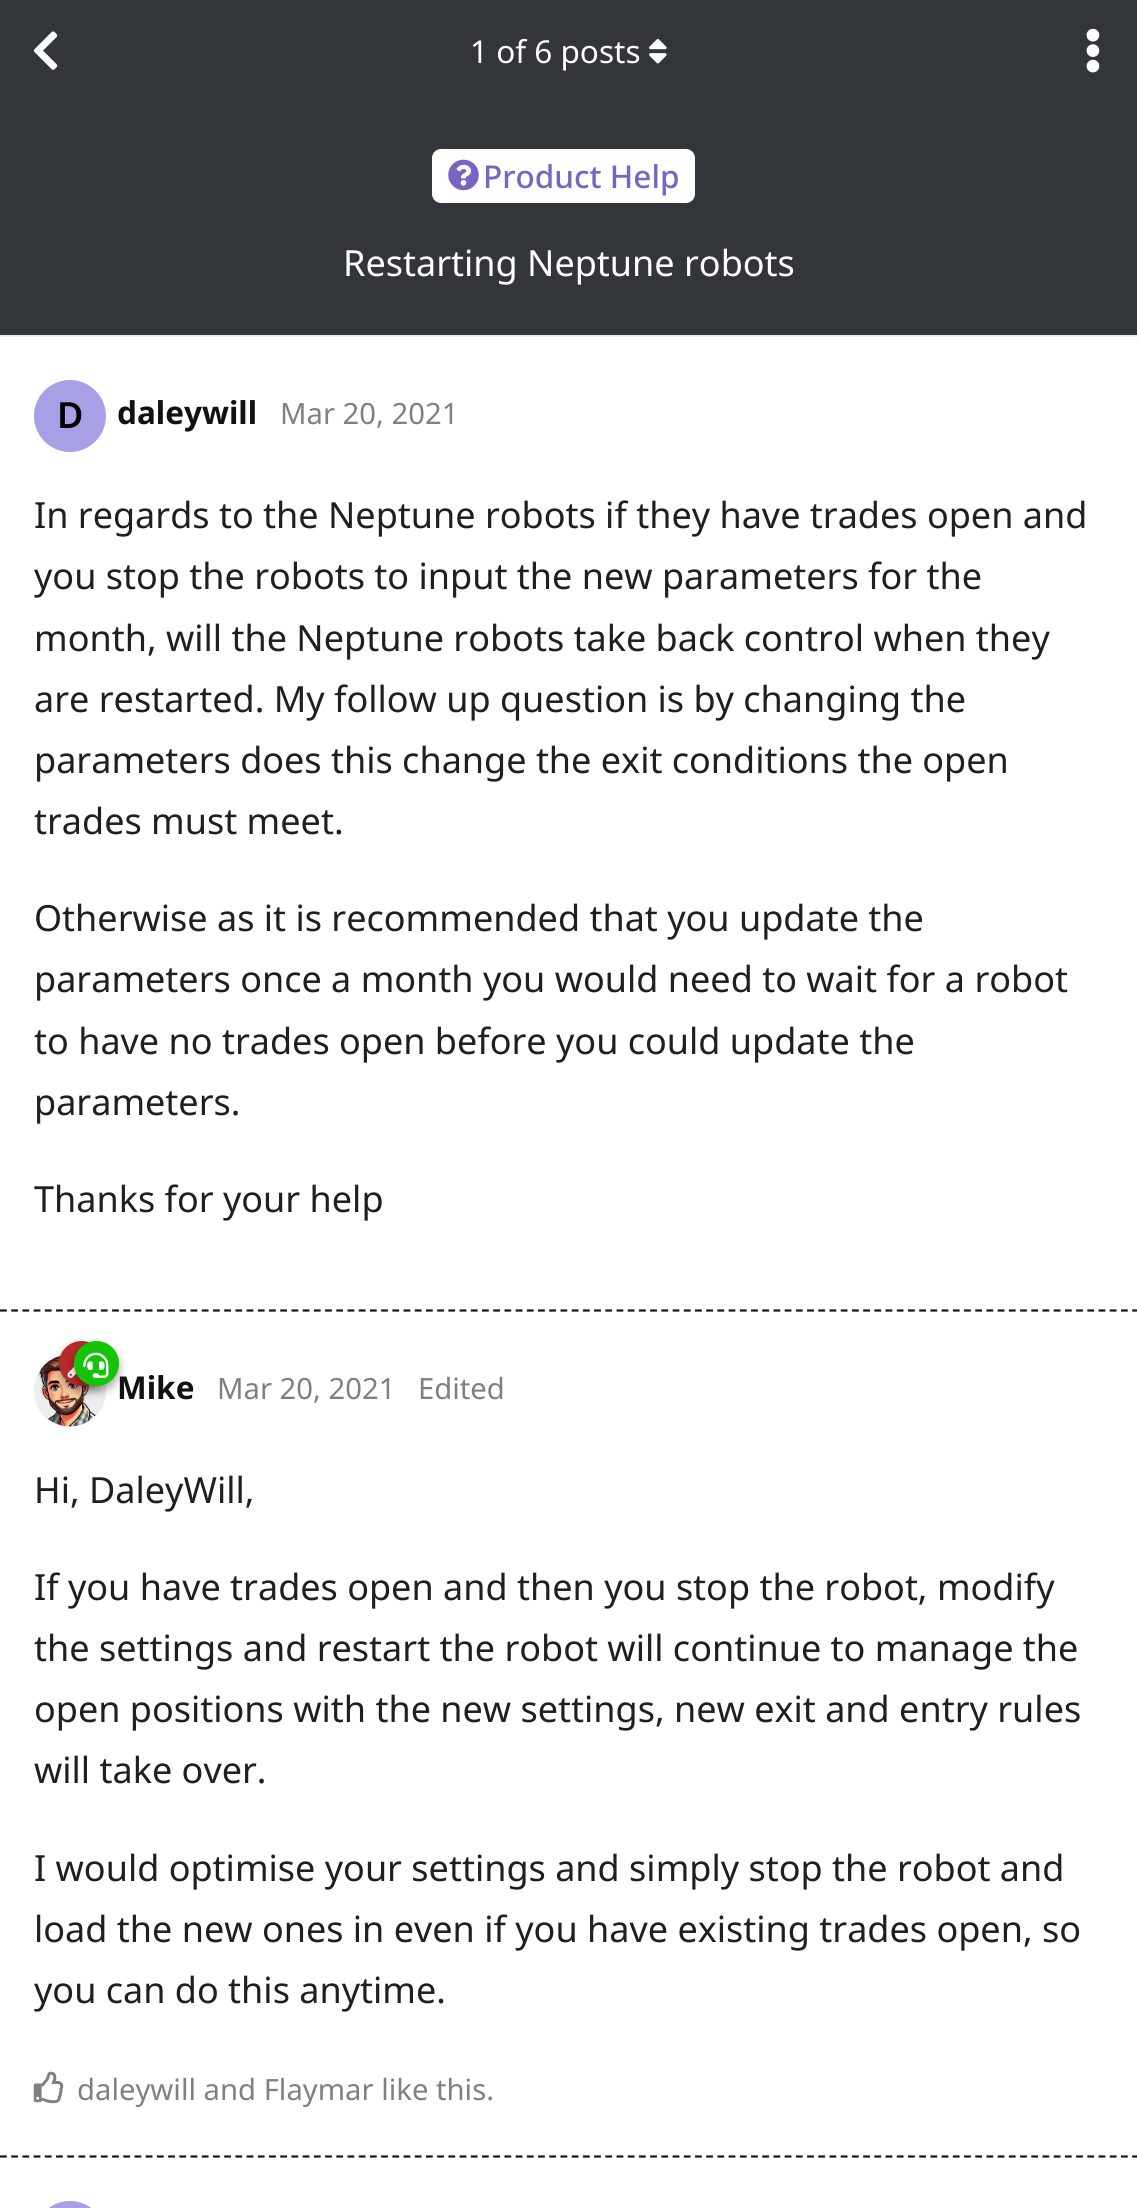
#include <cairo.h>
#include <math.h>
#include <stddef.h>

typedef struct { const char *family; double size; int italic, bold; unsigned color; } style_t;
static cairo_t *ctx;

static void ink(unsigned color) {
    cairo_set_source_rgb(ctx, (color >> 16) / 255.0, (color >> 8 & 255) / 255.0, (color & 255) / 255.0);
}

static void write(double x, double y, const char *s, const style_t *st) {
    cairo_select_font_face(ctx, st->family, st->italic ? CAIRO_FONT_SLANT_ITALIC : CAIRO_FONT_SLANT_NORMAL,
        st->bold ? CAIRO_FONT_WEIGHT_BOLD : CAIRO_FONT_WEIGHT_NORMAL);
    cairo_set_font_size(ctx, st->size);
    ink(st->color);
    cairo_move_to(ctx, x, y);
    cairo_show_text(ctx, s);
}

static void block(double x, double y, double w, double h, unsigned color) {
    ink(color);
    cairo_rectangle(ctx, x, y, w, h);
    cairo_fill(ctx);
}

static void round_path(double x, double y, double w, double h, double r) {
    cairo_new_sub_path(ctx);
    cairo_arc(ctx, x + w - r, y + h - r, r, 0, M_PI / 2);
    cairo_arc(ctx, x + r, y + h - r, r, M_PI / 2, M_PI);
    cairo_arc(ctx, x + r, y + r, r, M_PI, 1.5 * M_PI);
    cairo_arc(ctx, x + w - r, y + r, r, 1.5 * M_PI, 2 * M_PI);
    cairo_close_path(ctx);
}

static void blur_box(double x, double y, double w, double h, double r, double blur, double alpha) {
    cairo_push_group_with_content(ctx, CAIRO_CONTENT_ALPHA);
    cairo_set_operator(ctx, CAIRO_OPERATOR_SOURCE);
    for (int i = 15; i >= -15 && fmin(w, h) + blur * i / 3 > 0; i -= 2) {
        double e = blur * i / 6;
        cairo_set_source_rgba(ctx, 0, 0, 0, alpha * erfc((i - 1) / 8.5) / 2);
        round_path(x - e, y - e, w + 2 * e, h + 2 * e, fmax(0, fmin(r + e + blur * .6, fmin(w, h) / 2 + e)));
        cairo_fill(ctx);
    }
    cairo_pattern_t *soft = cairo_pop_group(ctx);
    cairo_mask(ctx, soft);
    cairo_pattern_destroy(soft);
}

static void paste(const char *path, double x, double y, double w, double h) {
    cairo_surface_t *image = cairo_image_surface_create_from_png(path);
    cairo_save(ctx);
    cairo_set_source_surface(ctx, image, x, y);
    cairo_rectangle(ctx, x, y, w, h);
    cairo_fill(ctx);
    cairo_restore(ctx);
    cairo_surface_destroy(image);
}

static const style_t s1 = {"Noto Sans", 31.5, 0, 0, 0xffffff};
static const style_t s2 = {"Noto Sans SemiBold", 36, 0, 0, 0x000000};
static const style_t s3 = {"Noto Sans", 31.5, 0, 1, 0x111111};
static const style_t s4 = {"Noto Sans", 29.25, 0, 0, 0x808080};
static const style_t s5 = {"Noto Sans", 36, 0, 0, 0x201e1e};
static const style_t s6 = {"Noto Sans Medium", 31.5, 0, 0, 0x7965c1};
static const style_t s7 = {"Noto Sans", 36, 0, 0, 0xffffff};

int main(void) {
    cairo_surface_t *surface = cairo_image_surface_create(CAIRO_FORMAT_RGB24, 1137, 2208);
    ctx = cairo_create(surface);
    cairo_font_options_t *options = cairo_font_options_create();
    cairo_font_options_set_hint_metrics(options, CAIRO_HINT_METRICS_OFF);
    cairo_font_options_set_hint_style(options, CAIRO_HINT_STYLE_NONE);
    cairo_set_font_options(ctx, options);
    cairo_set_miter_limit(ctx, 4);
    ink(0xffffff);
    cairo_paint(ctx);
    block(0, 0, 1137, 335, 0x32363a);
    paste("pic1.png", 33, 31, 25, 39);
    block(0, 335, 1137, 2, 0xededed);
    write(470, 63, "1 of 6 posts", &s1);
    paste("pic2.png", 649, 39, 18, 25);
    paste("pic3.png", 1086, 28, 14, 45);
    cairo_new_path(ctx);
    cairo_move_to(ctx, 0, 1310.5);
    cairo_line_to(ctx, 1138.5, 1310.5);
    ink(0x161414);
    cairo_set_line_width(ctx, 2.2);
    cairo_set_dash(ctx, (double[]){6.75, 4.46}, 2, 0);
    cairo_stroke(ctx);
    ink(0xa8a0e5);
    cairo_arc(ctx, 70, 416, 36, 0, 2 * M_PI);
    cairo_fill(ctx);
    write(57, 428, "D", &s2);
    write(117, 424, "daleywill", &s3);
    write(280, 424, "Mar 20, 2021", &s4);
    write(34, 528, "In regards to the Neptune robots if they have trades open and", &s5);
    write(34, 589, "you stop the robots to input the new parameters for the", &s5);
    write(34, 651, "month, will the Neptune robots take back control when they", &s5);
    write(34, 712, "are restarted. My follow up question is by changing the", &s5);
    write(34, 773, "parameters does this change the exit conditions the open", &s5);
    write(34, 834, "trades must meet.", &s5);
    write(34, 931, "Otherwise as it is recommended that you update the", &s5);
    write(34, 992, "parameters once a month you would need to wait for a robot", &s5);
    write(34, 1054, "to have no trades open before you could update the", &s5);
    write(34, 1115, "parameters.", &s5);
    write(34, 1212, "Thanks for your help", &s5);
    cairo_new_path(ctx);
    cairo_move_to(ctx, 0, 2156.5);
    cairo_line_to(ctx, 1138.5, 2156.5);
    ink(0x161414);
    cairo_stroke(ctx);
    ink(0xededed);
    cairo_arc(ctx, 70, 1391, 36, 0, 2 * M_PI);
    cairo_fill(ctx);
    paste("pic6.png", 38, 1355, 59, 72);
    ink(0x000000);
    blur_box(59, 1346, 45, 45, 22.5, 4.5, 0.35);
    ink(0xb72a2a);
    cairo_arc(ctx, 81.5, 1363.5, 22.5, 0, 2 * M_PI);
    cairo_fill(ctx);
    paste("pic4.png", 67, 1366, 10, 12);
    ink(0x000000);
    blur_box(74, 1346, 45, 45, 22.5, 4.5, 0.35);
    ink(0x15c408);
    cairo_arc(ctx, 96.5, 1363.5, 22.5, 0, 2 * M_PI);
    cairo_fill(ctx);
    paste("pic5.png", 83, 1352, 26, 26);
    write(117, 1399, "Mike", &s3);
    write(217, 1399, "Mar 20, 2021", &s4);
    write(418, 1399, "Edited", &s4);
    write(34, 1503, "Hi, DaleyWill,", &s5);
    write(34, 1600, "If you have trades open and then you stop the robot, modify", &s5);
    write(34, 1661, "the settings and restart the robot will continue to manage the", &s5);
    write(34, 1722, "open positions with the new settings, new exit and entry rules", &s5);
    write(34, 1783, "will take over.", &s5);
    write(34, 1881, "I would optimise your settings and simply stop the robot and", &s5);
    write(34, 1942, "load the new ones in even if you have existing trades open, so", &s5);
    write(34, 2003, "you can do this anytime.", &s5);
    paste("pic7.png", 33, 2071, 31, 33);
    write(77, 2100, "daleywill and Flaymar like this.", &s4);
    ink(0xa8a0e5);
    round_path(34, 2201, 72, 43, 36);
    cairo_fill(ctx);
    ink(0xffffff);
    round_path(432, 149, 263, 54, 9);
    cairo_fill(ctx);
    paste("pic8.png", 448, 159, 31, 32);
    write(483, 188, "Product Help", &s6);
    write(343, 276, "Restarting Neptune robots", &s7);
    cairo_surface_write_to_png(surface, "screenshot.png");
    cairo_font_options_destroy(options);
    cairo_destroy(ctx);
    cairo_surface_destroy(surface);
    return 0;
}
